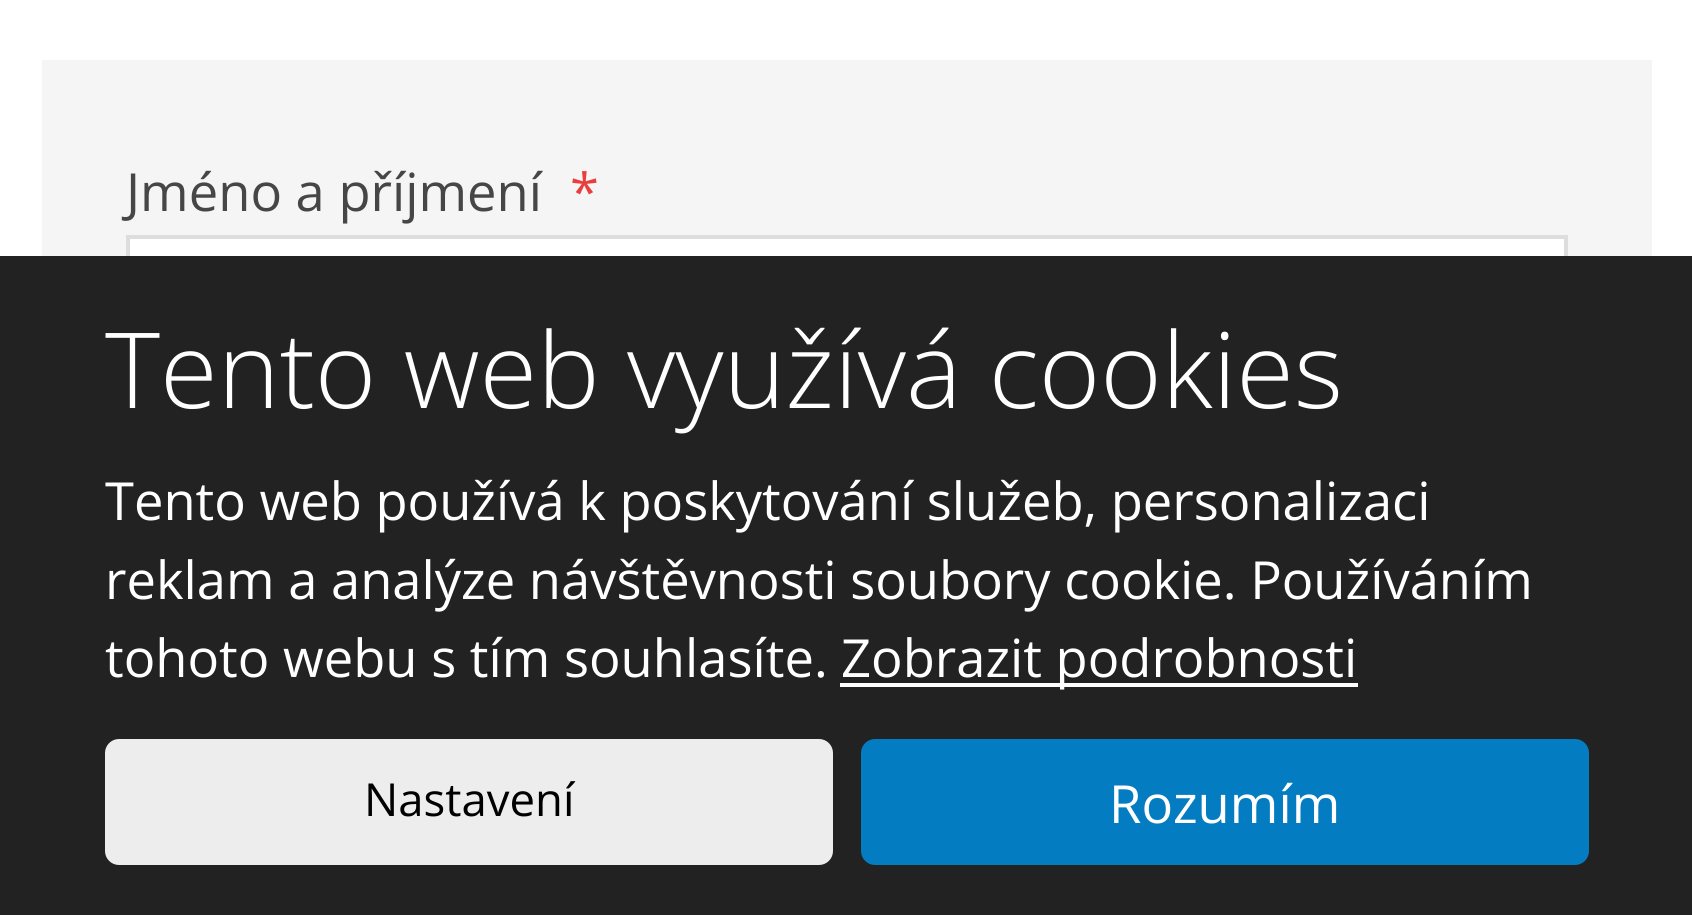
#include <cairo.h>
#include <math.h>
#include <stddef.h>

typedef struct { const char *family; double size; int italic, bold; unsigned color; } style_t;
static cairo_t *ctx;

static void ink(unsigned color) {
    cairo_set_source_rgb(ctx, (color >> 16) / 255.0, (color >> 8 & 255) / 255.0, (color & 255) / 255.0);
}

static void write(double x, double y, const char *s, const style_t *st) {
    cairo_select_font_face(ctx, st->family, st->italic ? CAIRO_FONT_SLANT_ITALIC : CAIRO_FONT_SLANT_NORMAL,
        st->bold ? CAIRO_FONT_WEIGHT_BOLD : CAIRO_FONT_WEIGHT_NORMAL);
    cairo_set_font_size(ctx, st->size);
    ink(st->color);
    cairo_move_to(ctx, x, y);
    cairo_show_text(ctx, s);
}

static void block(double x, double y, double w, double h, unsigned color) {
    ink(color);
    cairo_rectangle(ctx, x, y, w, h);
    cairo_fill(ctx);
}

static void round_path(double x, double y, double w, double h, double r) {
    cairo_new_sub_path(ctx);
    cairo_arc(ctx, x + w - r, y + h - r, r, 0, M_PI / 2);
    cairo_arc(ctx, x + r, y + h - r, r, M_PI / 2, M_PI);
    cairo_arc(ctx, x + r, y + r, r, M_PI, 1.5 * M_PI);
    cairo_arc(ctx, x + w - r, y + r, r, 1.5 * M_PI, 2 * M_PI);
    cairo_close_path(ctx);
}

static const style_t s1 = {"Open Sans", 52.5, 0, 0, 0x464646};
static const style_t s2 = {"Open Sans", 52.5, 0, 0, 0xe83f3e};
static const style_t s3 = {"Open Sans Light", 105, 0, 0, 0xffffff};
static const style_t s4 = {"Open Sans", 52.5, 0, 0, 0xffffff};
static const style_t s5 = {"Open Sans", 45.5, 0, 0, 0x000000};

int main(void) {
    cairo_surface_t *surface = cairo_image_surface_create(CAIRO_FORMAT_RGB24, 1692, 915);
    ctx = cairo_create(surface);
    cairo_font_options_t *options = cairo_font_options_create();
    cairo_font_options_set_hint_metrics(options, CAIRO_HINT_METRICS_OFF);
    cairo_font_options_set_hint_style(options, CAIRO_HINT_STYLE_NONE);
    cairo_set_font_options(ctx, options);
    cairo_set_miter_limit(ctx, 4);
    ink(0xffffff);
    cairo_paint(ctx);
    block(42, 60, 1610, 196, 0xf5f5f5);
    write(126, 211, "Jméno a příjmení", &s1);
    write(570, 211, "*", &s2);
    block(130, 239, 1434, 17, 0xffffff);
    cairo_rectangle(ctx, 128, 237, 1438, 153);
    ink(0xdddddd);
    cairo_set_line_width(ctx, 4);
    cairo_stroke(ctx);
    block(0, 256, 1692, 659, 0x222222);
    write(105, 408, "Tento web využívá cookies", &s3);
    write(105, 520, "Tento web používá k poskytování služeb, personalizaci", &s4);
    write(105, 599, "reklam a analýze návštěvnosti soubory cookie. Používáním", &s4);
    write(105, 677, "tohoto webu s tím souhlasíte.", &s4);
    block(840, 683, 518, 4, 0xffffff);
    write(841, 677, "Zobrazit podrobnosti", &s4);
    ink(0xededed);
    round_path(105, 739, 728, 126, 14);
    cairo_fill(ctx);
    write(364, 816, "Nastavení", &s5);
    ink(0x047cc1);
    round_path(861, 739, 728, 126, 14);
    cairo_fill(ctx);
    write(1109, 823, "Rozumím", &s4);
    cairo_surface_write_to_png(surface, "screenshot.png");
    cairo_font_options_destroy(options);
    cairo_destroy(ctx);
    cairo_surface_destroy(surface);
    return 0;
}
